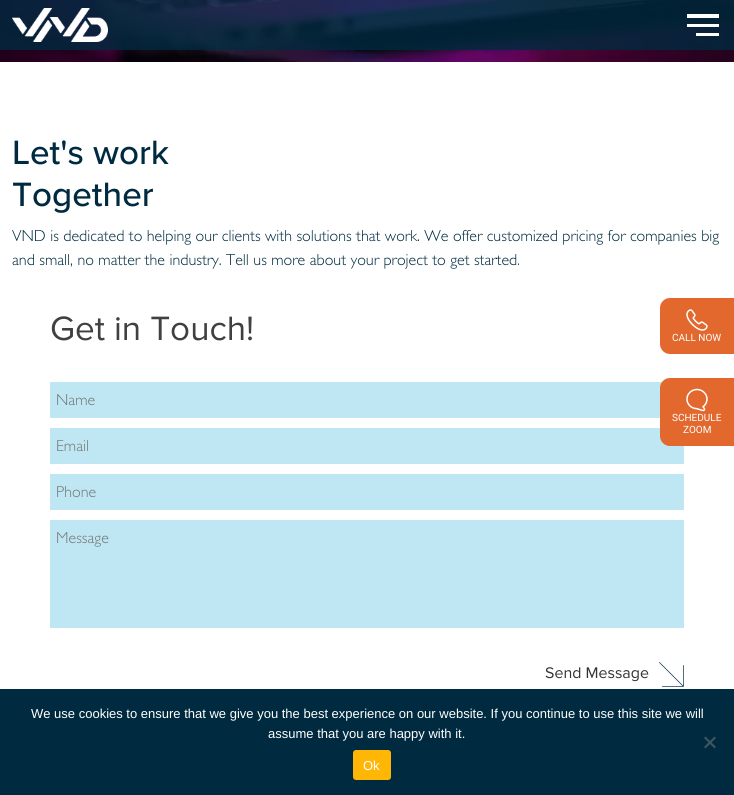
#include <cairo.h>
#include <math.h>
#include <stddef.h>

typedef struct { const char *family; double size; int italic, bold; unsigned color; } style_t;
static cairo_t *ctx;

static void ink(unsigned color) {
    cairo_set_source_rgb(ctx, (color >> 16) / 255.0, (color >> 8 & 255) / 255.0, (color & 255) / 255.0);
}

static void write(double x, double y, const char *s, const style_t *st) {
    cairo_select_font_face(ctx, st->family, st->italic ? CAIRO_FONT_SLANT_ITALIC : CAIRO_FONT_SLANT_NORMAL,
        st->bold ? CAIRO_FONT_WEIGHT_BOLD : CAIRO_FONT_WEIGHT_NORMAL);
    cairo_set_font_size(ctx, st->size);
    ink(st->color);
    cairo_move_to(ctx, x, y);
    cairo_show_text(ctx, s);
}

static void block(double x, double y, double w, double h, unsigned color) {
    ink(color);
    cairo_rectangle(ctx, x, y, w, h);
    cairo_fill(ctx);
}

static void round_path(double x, double y, double w, double h, double r) {
    cairo_new_sub_path(ctx);
    cairo_arc(ctx, x + w - r, y + h - r, r, 0, M_PI / 2);
    cairo_arc(ctx, x + r, y + h - r, r, M_PI / 2, M_PI);
    cairo_arc(ctx, x + r, y + r, r, M_PI, 1.5 * M_PI);
    cairo_arc(ctx, x + w - r, y + r, r, 1.5 * M_PI, 2 * M_PI);
    cairo_close_path(ctx);
}

static void paste(const char *path, double x, double y, double w, double h) {
    cairo_surface_t *image = cairo_image_surface_create_from_png(path);
    cairo_save(ctx);
    cairo_set_source_surface(ctx, image, x, y);
    cairo_rectangle(ctx, x, y, w, h);
    cairo_fill(ctx);
    cairo_restore(ctx);
    cairo_surface_destroy(image);
}

static const style_t s1 = {"Proxima Nova Medium", 35, 0, 0, 0x002a3f};
static const style_t s2 = {"Gill Sans Light", 16, 0, 0, 0x002a3f};
static const style_t s3 = {"Proxima Nova", 35, 0, 0, 0x404040};
static const style_t s4 = {"Gill Sans Light", 16, 0, 0, 0x757575};
static const style_t s5 = {"Proxima Nova", 16, 0, 0, 0x333333};
static const style_t s6 = {"Roboto", 10, 0, 0, 0xffffff};
static const style_t s7 = {"Liberation Sans", 13, 0, 0, 0xffffff};

int main(void) {
    cairo_surface_t *surface = cairo_image_surface_create(CAIRO_FORMAT_RGB24, 734, 795);
    ctx = cairo_create(surface);
    cairo_font_options_t *options = cairo_font_options_create();
    cairo_font_options_set_hint_metrics(options, CAIRO_HINT_METRICS_OFF);
    cairo_font_options_set_hint_style(options, CAIRO_HINT_STYLE_NONE);
    cairo_set_font_options(ctx, options);
    cairo_set_miter_limit(ctx, 4);
    ink(0xffffff);
    cairo_paint(ctx);
    paste("pic1.png", 0, 0, 734, 62);
    cairo_set_source_rgba(ctx, 0, 0.165, 0.247, 0.8);
    cairo_rectangle(ctx, 0, 0, 734, 50);
    cairo_fill(ctx);
    paste("pic2.png", 12, 8, 96, 34);
    block(687, 14, 32, 4, 0xffffff);
    block(687, 24, 32, 3, 0xffffff);
    block(696, 33, 23, 3, 0xffffff);
    write(12, 164, "Let's work", &s1);
    write(12, 206, "Together", &s1);
    write(12, 241, "VND is dedicated to helping our clients with solutions that work. We offer customized pricing for companies big", &s2);
    write(12, 265, "and small, no matter the industry. Tell us more about your project to get started.", &s2);
    write(50, 340, "Get in Touch!", &s3);
    block(50, 382, 612, 36, 0xbee7f3);
    write(56, 405, "Name", &s4);
    block(50, 428, 634, 36, 0xbee7f3);
    write(56, 451, "Email", &s4);
    block(50, 474, 634, 36, 0xbee7f3);
    write(56, 497, "Phone", &s4);
    block(50, 520, 634, 108, 0xbee7f3);
    write(56, 543, "Message", &s4);
    write(545, 678, "Send Message", &s5);
    paste("pic3.png", 659, 662, 25, 25);
    ink(0xe2682d);
    cairo_new_path(ctx);
    cairo_move_to(ctx, 670, 298);
    cairo_line_to(ctx, 734, 298);
    cairo_line_to(ctx, 734, 354);
    cairo_line_to(ctx, 670, 354);
    cairo_curve_to(ctx, 664.5, 354, 660, 349.5, 660, 344);
    cairo_line_to(ctx, 660, 308);
    cairo_curve_to(ctx, 660, 302.5, 664.5, 298, 670, 298);
    cairo_close_path(ctx);
    cairo_fill(ctx);
    paste("pic4.png", 686, 309, 22, 22);
    write(672, 341, "CALL NOW", &s6);
    ink(0xe2682d);
    cairo_new_path(ctx);
    cairo_move_to(ctx, 670, 378);
    cairo_line_to(ctx, 734, 378);
    cairo_line_to(ctx, 734, 446);
    cairo_line_to(ctx, 670, 446);
    cairo_curve_to(ctx, 664.5, 446, 660, 441.5, 660, 436);
    cairo_line_to(ctx, 660, 388);
    cairo_curve_to(ctx, 660, 382.5, 664.5, 378, 670, 378);
    cairo_close_path(ctx);
    cairo_fill(ctx);
    paste("pic5.png", 686, 388, 22, 24);
    write(672, 421, "SCHEDULE", &s6);
    write(683, 433, "ZOOM", &s6);
    block(0, 689, 734, 106, 0x002a3f);
    write(31, 718, "We use cookies to ensure that we give you the best experience on our website. If you continue to use this site we will", &s7);
    write(268, 738, "assume that you are happy with it.", &s7);
    ink(0x405560);
    cairo_new_path(ctx);
    cairo_move_to(ctx, 714.5, 736.5);
    cairo_line_to(ctx, 716, 738);
    cairo_line_to(ctx, 705.5, 748.5);
    cairo_line_to(ctx, 704, 747);
    cairo_close_path(ctx);
    cairo_fill(ctx);
    cairo_new_path(ctx);
    cairo_move_to(ctx, 704, 738);
    cairo_line_to(ctx, 705.5, 736.5);
    cairo_line_to(ctx, 716, 747);
    cairo_line_to(ctx, 714.5, 748.5);
    cairo_close_path(ctx);
    cairo_fill(ctx);
    ink(0xffb605);
    round_path(353, 750, 38, 30, 3);
    cairo_fill(ctx);
    write(363, 770, "Ok", &s7);
    cairo_surface_write_to_png(surface, "screenshot.png");
    cairo_font_options_destroy(options);
    cairo_destroy(ctx);
    cairo_surface_destroy(surface);
    return 0;
}
